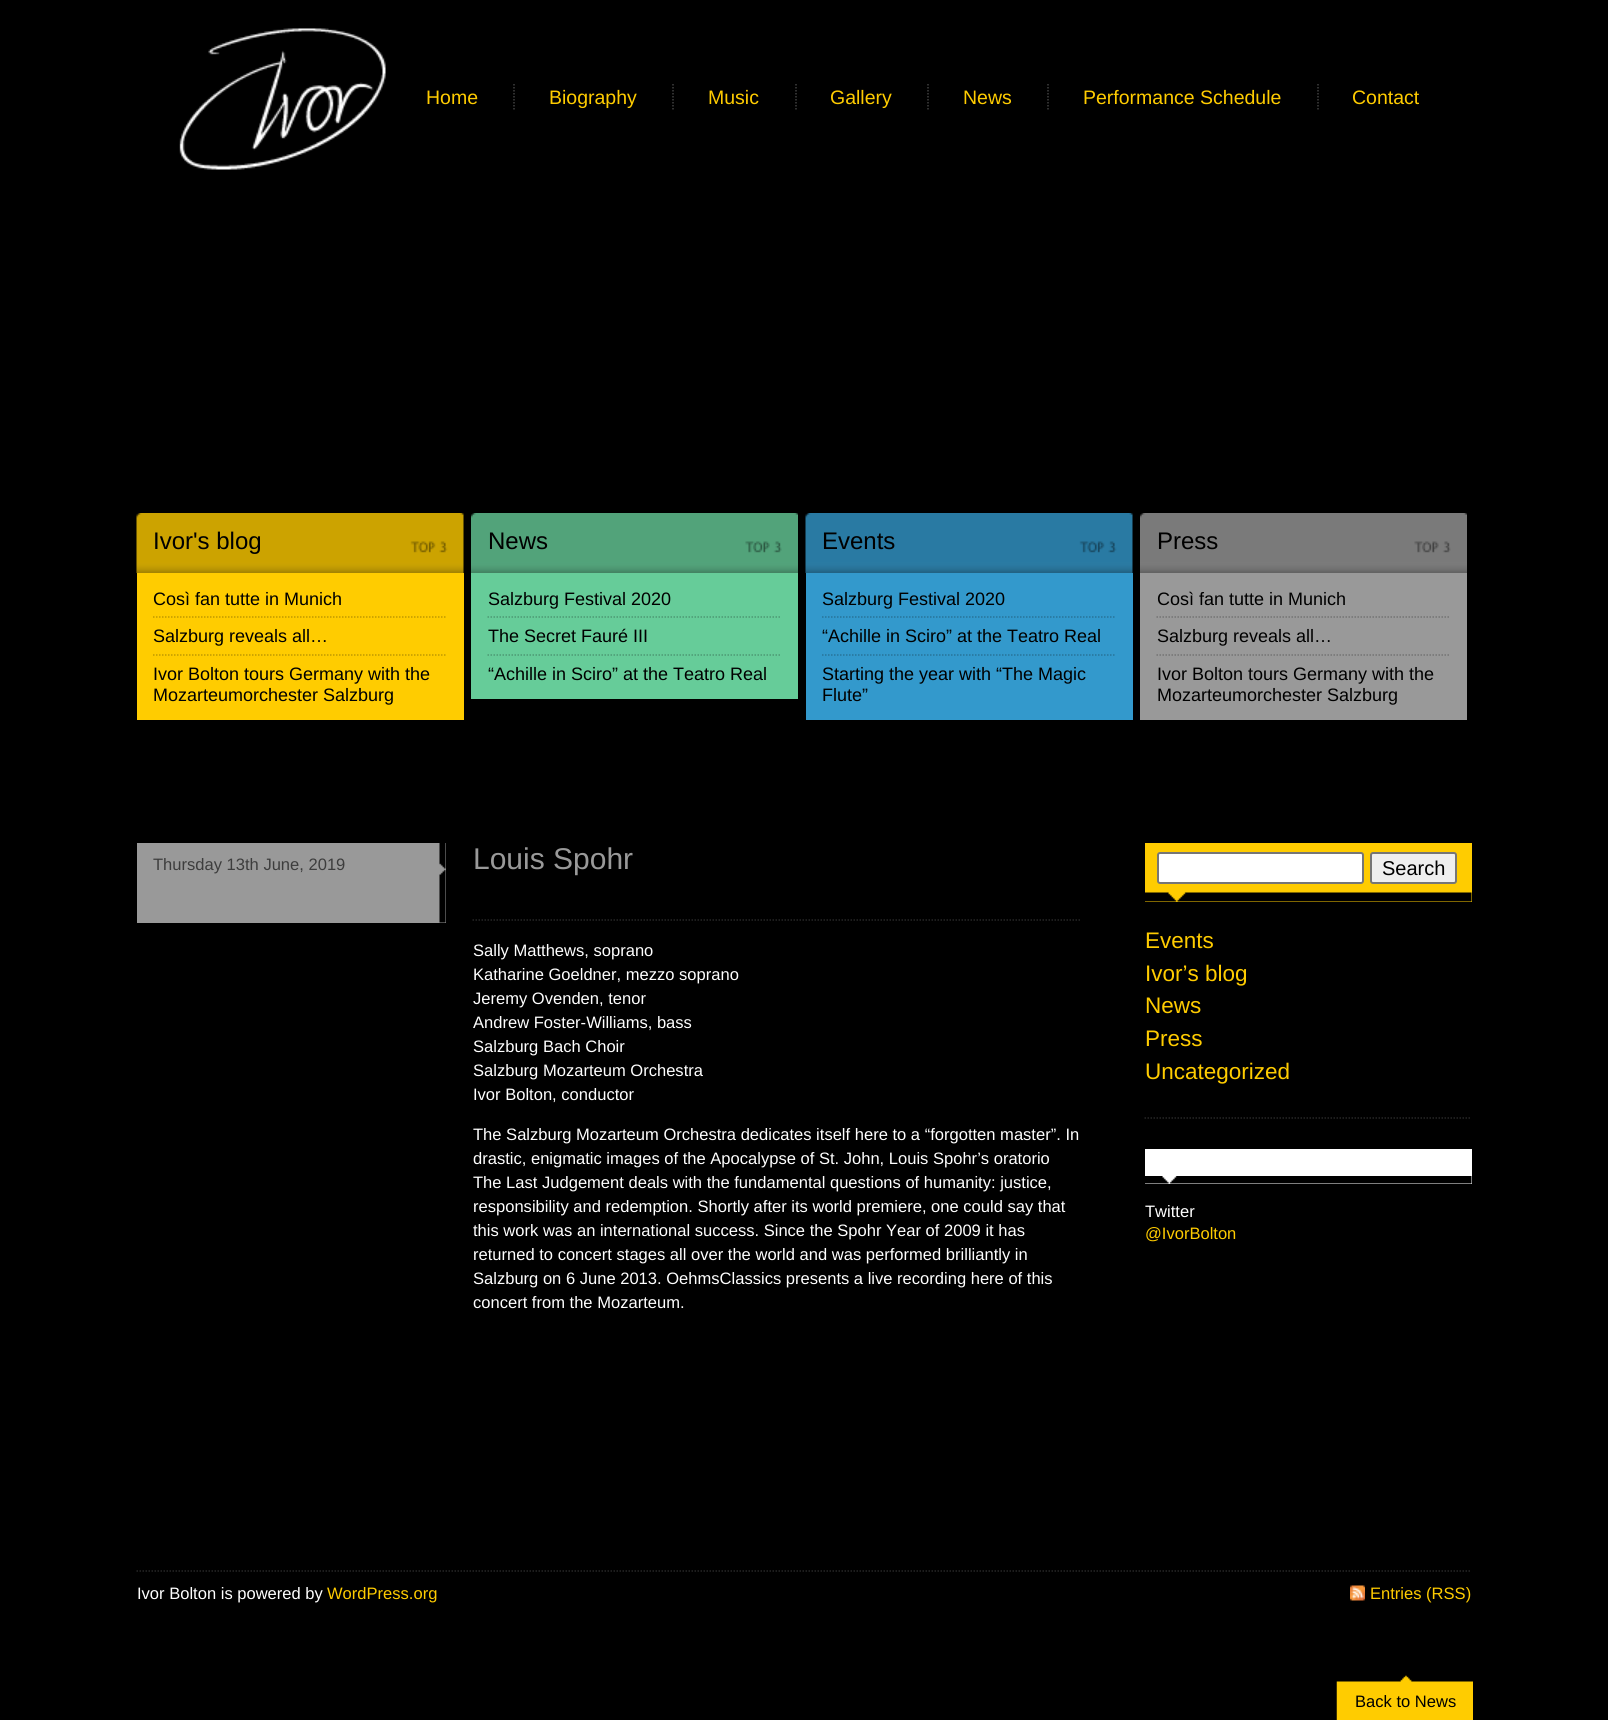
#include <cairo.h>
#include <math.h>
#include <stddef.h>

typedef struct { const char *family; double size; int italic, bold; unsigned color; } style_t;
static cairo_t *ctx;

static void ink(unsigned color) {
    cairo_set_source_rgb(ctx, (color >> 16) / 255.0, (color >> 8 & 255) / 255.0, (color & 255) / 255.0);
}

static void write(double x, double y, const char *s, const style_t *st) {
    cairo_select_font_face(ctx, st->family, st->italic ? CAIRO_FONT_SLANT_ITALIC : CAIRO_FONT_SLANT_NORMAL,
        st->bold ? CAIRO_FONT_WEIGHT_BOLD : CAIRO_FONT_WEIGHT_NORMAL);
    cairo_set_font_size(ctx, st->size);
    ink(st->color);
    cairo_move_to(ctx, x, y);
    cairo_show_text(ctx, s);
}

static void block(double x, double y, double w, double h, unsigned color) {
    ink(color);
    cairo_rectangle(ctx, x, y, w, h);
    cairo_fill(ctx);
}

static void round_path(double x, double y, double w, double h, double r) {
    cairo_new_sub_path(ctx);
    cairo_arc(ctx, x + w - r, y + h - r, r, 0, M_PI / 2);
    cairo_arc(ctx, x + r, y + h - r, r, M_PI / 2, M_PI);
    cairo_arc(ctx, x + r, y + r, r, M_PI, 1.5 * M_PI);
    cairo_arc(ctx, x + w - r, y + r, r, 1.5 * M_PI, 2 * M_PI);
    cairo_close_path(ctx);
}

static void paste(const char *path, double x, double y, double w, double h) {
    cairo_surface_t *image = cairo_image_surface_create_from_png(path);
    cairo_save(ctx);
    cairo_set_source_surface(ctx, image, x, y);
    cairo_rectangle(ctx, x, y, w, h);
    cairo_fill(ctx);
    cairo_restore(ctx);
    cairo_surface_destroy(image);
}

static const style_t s1 = {"Liberation Sans", 19.5, 0, 0, 0xffcc00};
static const style_t s2 = {"Liberation Sans", 24, 0, 0, 0x000000};
static const style_t s3 = {"Liberation Sans", 18, 0, 0, 0x000000};
static const style_t s4 = {"Liberation Sans", 16.55, 0, 0, 0x3d3d3d};
static const style_t s5 = {"Liberation Sans", 30, 0, 0, 0x999999};
static const style_t s6 = {"Liberation Sans", 16.55, 0, 0, 0xffffff};
static const style_t s7 = {"Liberation Sans", 20, 0, 0, 0x000000};
static const style_t s8 = {"Liberation Sans", 22.5, 0, 0, 0xffcc00};
static const style_t s9 = {"Liberation Sans", 16.55, 0, 0, 0xffcc00};
static const style_t s10 = {"Liberation Sans", 16.55, 0, 0, 0x000000};

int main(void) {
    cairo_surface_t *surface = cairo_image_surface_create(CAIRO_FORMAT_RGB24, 1608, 1720);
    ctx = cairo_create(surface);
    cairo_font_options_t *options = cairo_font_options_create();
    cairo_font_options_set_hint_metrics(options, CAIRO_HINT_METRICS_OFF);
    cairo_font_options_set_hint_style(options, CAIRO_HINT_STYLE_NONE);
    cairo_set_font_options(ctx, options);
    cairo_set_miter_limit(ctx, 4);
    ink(0x000000);
    cairo_paint(ctx);
    paste("pic1.png", 179, 28, 207, 142);
    write(426, 104, "Home", &s1);
    write(549, 104, "Biography", &s1);
    cairo_new_path(ctx);
    cairo_move_to(ctx, 514, 84);
    cairo_line_to(ctx, 514, 109.5);
    ink(0x404040);
    cairo_set_line_width(ctx, 1.5);
    cairo_set_dash(ctx, (double[]){1.5, 1.5}, 2, 0);
    cairo_stroke(ctx);
    write(708, 104, "Music", &s1);
    cairo_new_path(ctx);
    cairo_move_to(ctx, 673, 84);
    cairo_line_to(ctx, 673, 109.5);
    ink(0x404040);
    cairo_stroke(ctx);
    write(830, 104, "Gallery", &s1);
    cairo_new_path(ctx);
    cairo_move_to(ctx, 796, 84);
    cairo_line_to(ctx, 796, 109.5);
    ink(0x404040);
    cairo_stroke(ctx);
    write(963, 104, "News", &s1);
    cairo_new_path(ctx);
    cairo_move_to(ctx, 928, 84);
    cairo_line_to(ctx, 928, 109.5);
    ink(0x404040);
    cairo_stroke(ctx);
    write(1083, 104, "Performance Schedule", &s1);
    cairo_new_path(ctx);
    cairo_move_to(ctx, 1048, 84);
    cairo_line_to(ctx, 1048, 109.5);
    ink(0x404040);
    cairo_stroke(ctx);
    write(1352, 104, "Contact", &s1);
    cairo_new_path(ctx);
    cairo_move_to(ctx, 1318, 84);
    cairo_line_to(ctx, 1318, 109.5);
    ink(0x404040);
    cairo_stroke(ctx);
    paste("pic2.png", 136, 513, 328, 60);
    write(153, 549, "Ivor's blog", &s2);
    block(137, 573, 327, 147, 0xffcc00);
    write(153, 605, "Così fan tutte in Munich", &s3);
    cairo_new_path(ctx);
    cairo_move_to(ctx, 153, 617);
    cairo_line_to(ctx, 447, 617);
    ink(0xbf9900);
    cairo_stroke(ctx);
    write(153, 642, "Salzburg reveals all…", &s3);
    cairo_new_path(ctx);
    cairo_move_to(ctx, 153, 655);
    cairo_line_to(ctx, 447, 655);
    ink(0xbf9900);
    cairo_stroke(ctx);
    write(153, 680, "Ivor Bolton tours Germany with the", &s3);
    write(153, 701, "Mozarteumorchester Salzburg", &s3);
    paste("pic3.png", 471, 513, 327, 60);
    write(488, 549, "News", &s2);
    block(471, 573, 327, 126, 0x66cc99);
    write(488, 605, "Salzburg Festival 2020", &s3);
    cairo_new_path(ctx);
    cairo_move_to(ctx, 487.5, 617);
    cairo_line_to(ctx, 781.5, 617);
    ink(0x4c9973);
    cairo_stroke(ctx);
    write(488, 642, "The Secret Fauré III", &s3);
    cairo_new_path(ctx);
    cairo_move_to(ctx, 487.5, 655);
    cairo_line_to(ctx, 781.5, 655);
    ink(0x4c9973);
    cairo_stroke(ctx);
    write(488, 680, "“Achille in Sciro” at the Teatro Real", &s3);
    paste("pic4.png", 805, 513, 328, 60);
    write(822, 549, "Events", &s2);
    block(806, 573, 327, 147, 0x3399cc);
    write(822, 605, "Salzburg Festival 2020", &s3);
    cairo_new_path(ctx);
    cairo_move_to(ctx, 822, 617);
    cairo_line_to(ctx, 1116, 617);
    ink(0x267399);
    cairo_stroke(ctx);
    write(822, 642, "“Achille in Sciro” at the Teatro Real", &s3);
    cairo_new_path(ctx);
    cairo_move_to(ctx, 822, 655);
    cairo_line_to(ctx, 1116, 655);
    ink(0x267399);
    cairo_stroke(ctx);
    write(822, 680, "Starting the year with “The Magic", &s3);
    write(822, 701, "Flute”", &s3);
    paste("pic5.png", 1140, 513, 327, 60);
    write(1157, 549, "Press", &s2);
    block(1140, 573, 327, 147, 0x999999);
    write(1157, 605, "Così fan tutte in Munich", &s3);
    cairo_new_path(ctx);
    cairo_move_to(ctx, 1156.5, 617);
    cairo_line_to(ctx, 1450.5, 617);
    ink(0x737373);
    cairo_stroke(ctx);
    write(1157, 642, "Salzburg reveals all…", &s3);
    cairo_new_path(ctx);
    cairo_move_to(ctx, 1156.5, 655);
    cairo_line_to(ctx, 1450.5, 655);
    ink(0x737373);
    cairo_stroke(ctx);
    write(1157, 680, "Ivor Bolton tours Germany with the", &s3);
    write(1157, 701, "Mozarteumorchester Salzburg", &s3);
    block(137, 843, 309, 80, 0x999999);
    paste("pic6.png", 439, 843, 7, 80);
    write(153, 870, "Thursday 13th June, 2019", &s4);
    cairo_new_path(ctx);
    cairo_move_to(ctx, 472.5, 920);
    cairo_line_to(ctx, 1080, 920);
    ink(0x262626);
    cairo_stroke(ctx);
    write(473, 869, "Louis Spohr", &s5);
    write(473, 956, "Sally Matthews, soprano", &s6);
    write(473, 980, "Katharine Goeldner, mezzo soprano", &s6);
    write(473, 1004, "Jeremy Ovenden, tenor", &s6);
    write(473, 1028, "Andrew Foster-Williams, bass", &s6);
    write(473, 1052, "Salzburg Bach Choir", &s6);
    write(473, 1076, "Salzburg Mozarteum Orchestra", &s6);
    write(473, 1100, "Ivor Bolton, conductor", &s6);
    write(473, 1140, "The Salzburg Mozarteum Orchestra dedicates itself here to a “forgotten master”. In", &s6);
    write(473, 1164, "drastic, enigmatic images of the Apocalypse of St. John, Louis Spohr’s oratorio", &s6);
    write(473, 1188, "The Last Judgement deals with the fundamental questions of humanity: justice,", &s6);
    write(473, 1212, "responsibility and redemption. Shortly after its world premiere, one could say that", &s6);
    write(473, 1236, "this work was an international success. Since the Spohr Year of 2009 it has", &s6);
    write(473, 1260, "returned to concert stages all over the world and was performed brilliantly in", &s6);
    write(473, 1284, "Salzburg on 6 June 2013. OehmsClassics presents a live recording here of this", &s6);
    write(473, 1308, "concert from the Mozarteum.", &s6);
    block(1145, 843, 327, 59, 0xffcc00);
    paste("pic7.png", 1145, 892, 327, 10);
    ink(0xffffff);
    round_path(1158, 853, 205, 30, 2);
    cairo_fill_preserve(ctx);
    ink(0x767676);
    cairo_set_line_width(ctx, 2);
    cairo_set_dash(ctx, NULL, 0, 0);
    cairo_stroke(ctx);
    ink(0xefefef);
    round_path(1371, 853, 85, 30, 2);
    cairo_fill_preserve(ctx);
    ink(0x767676);
    cairo_stroke(ctx);
    write(1382, 875, "Search", &s7);
    write(1145, 948, "Events", &s8);
    write(1145, 981, "Ivor’s blog", &s8);
    write(1145, 1013, "News", &s8);
    write(1145, 1046, "Press", &s8);
    write(1145, 1079, "Uncategorized", &s8);
    cairo_new_path(ctx);
    cairo_move_to(ctx, 1144.5, 1118);
    cairo_line_to(ctx, 1471.5, 1118);
    ink(0x262626);
    cairo_set_line_width(ctx, 1.5);
    cairo_set_dash(ctx, (double[]){1.5, 1.5}, 2, 0);
    cairo_stroke(ctx);
    block(1145, 1149, 327, 35, 0xffffff);
    paste("pic8.png", 1145, 1176, 327, 8);
    write(1145, 1217, "Twitter", &s6);
    write(1145, 1239, "@IvorBolton", &s9);
    cairo_new_path(ctx);
    cairo_move_to(ctx, 136.5, 1571);
    cairo_line_to(ctx, 1471.5, 1571);
    ink(0x262626);
    cairo_stroke(ctx);
    write(137, 1599, "Ivor Bolton is powered by", &s6);
    write(327, 1599, "WordPress.org", &s9);
    paste("pic9.png", 1350, 1585, 15, 16);
    write(1370, 1599, "Entries (RSS)", &s9);
    paste("pic10.png", 1336, 1675, 137, 45);
    write(1355, 1707, "Back to News", &s10);
    cairo_surface_write_to_png(surface, "screenshot.png");
    cairo_font_options_destroy(options);
    cairo_destroy(ctx);
    cairo_surface_destroy(surface);
    return 0;
}
